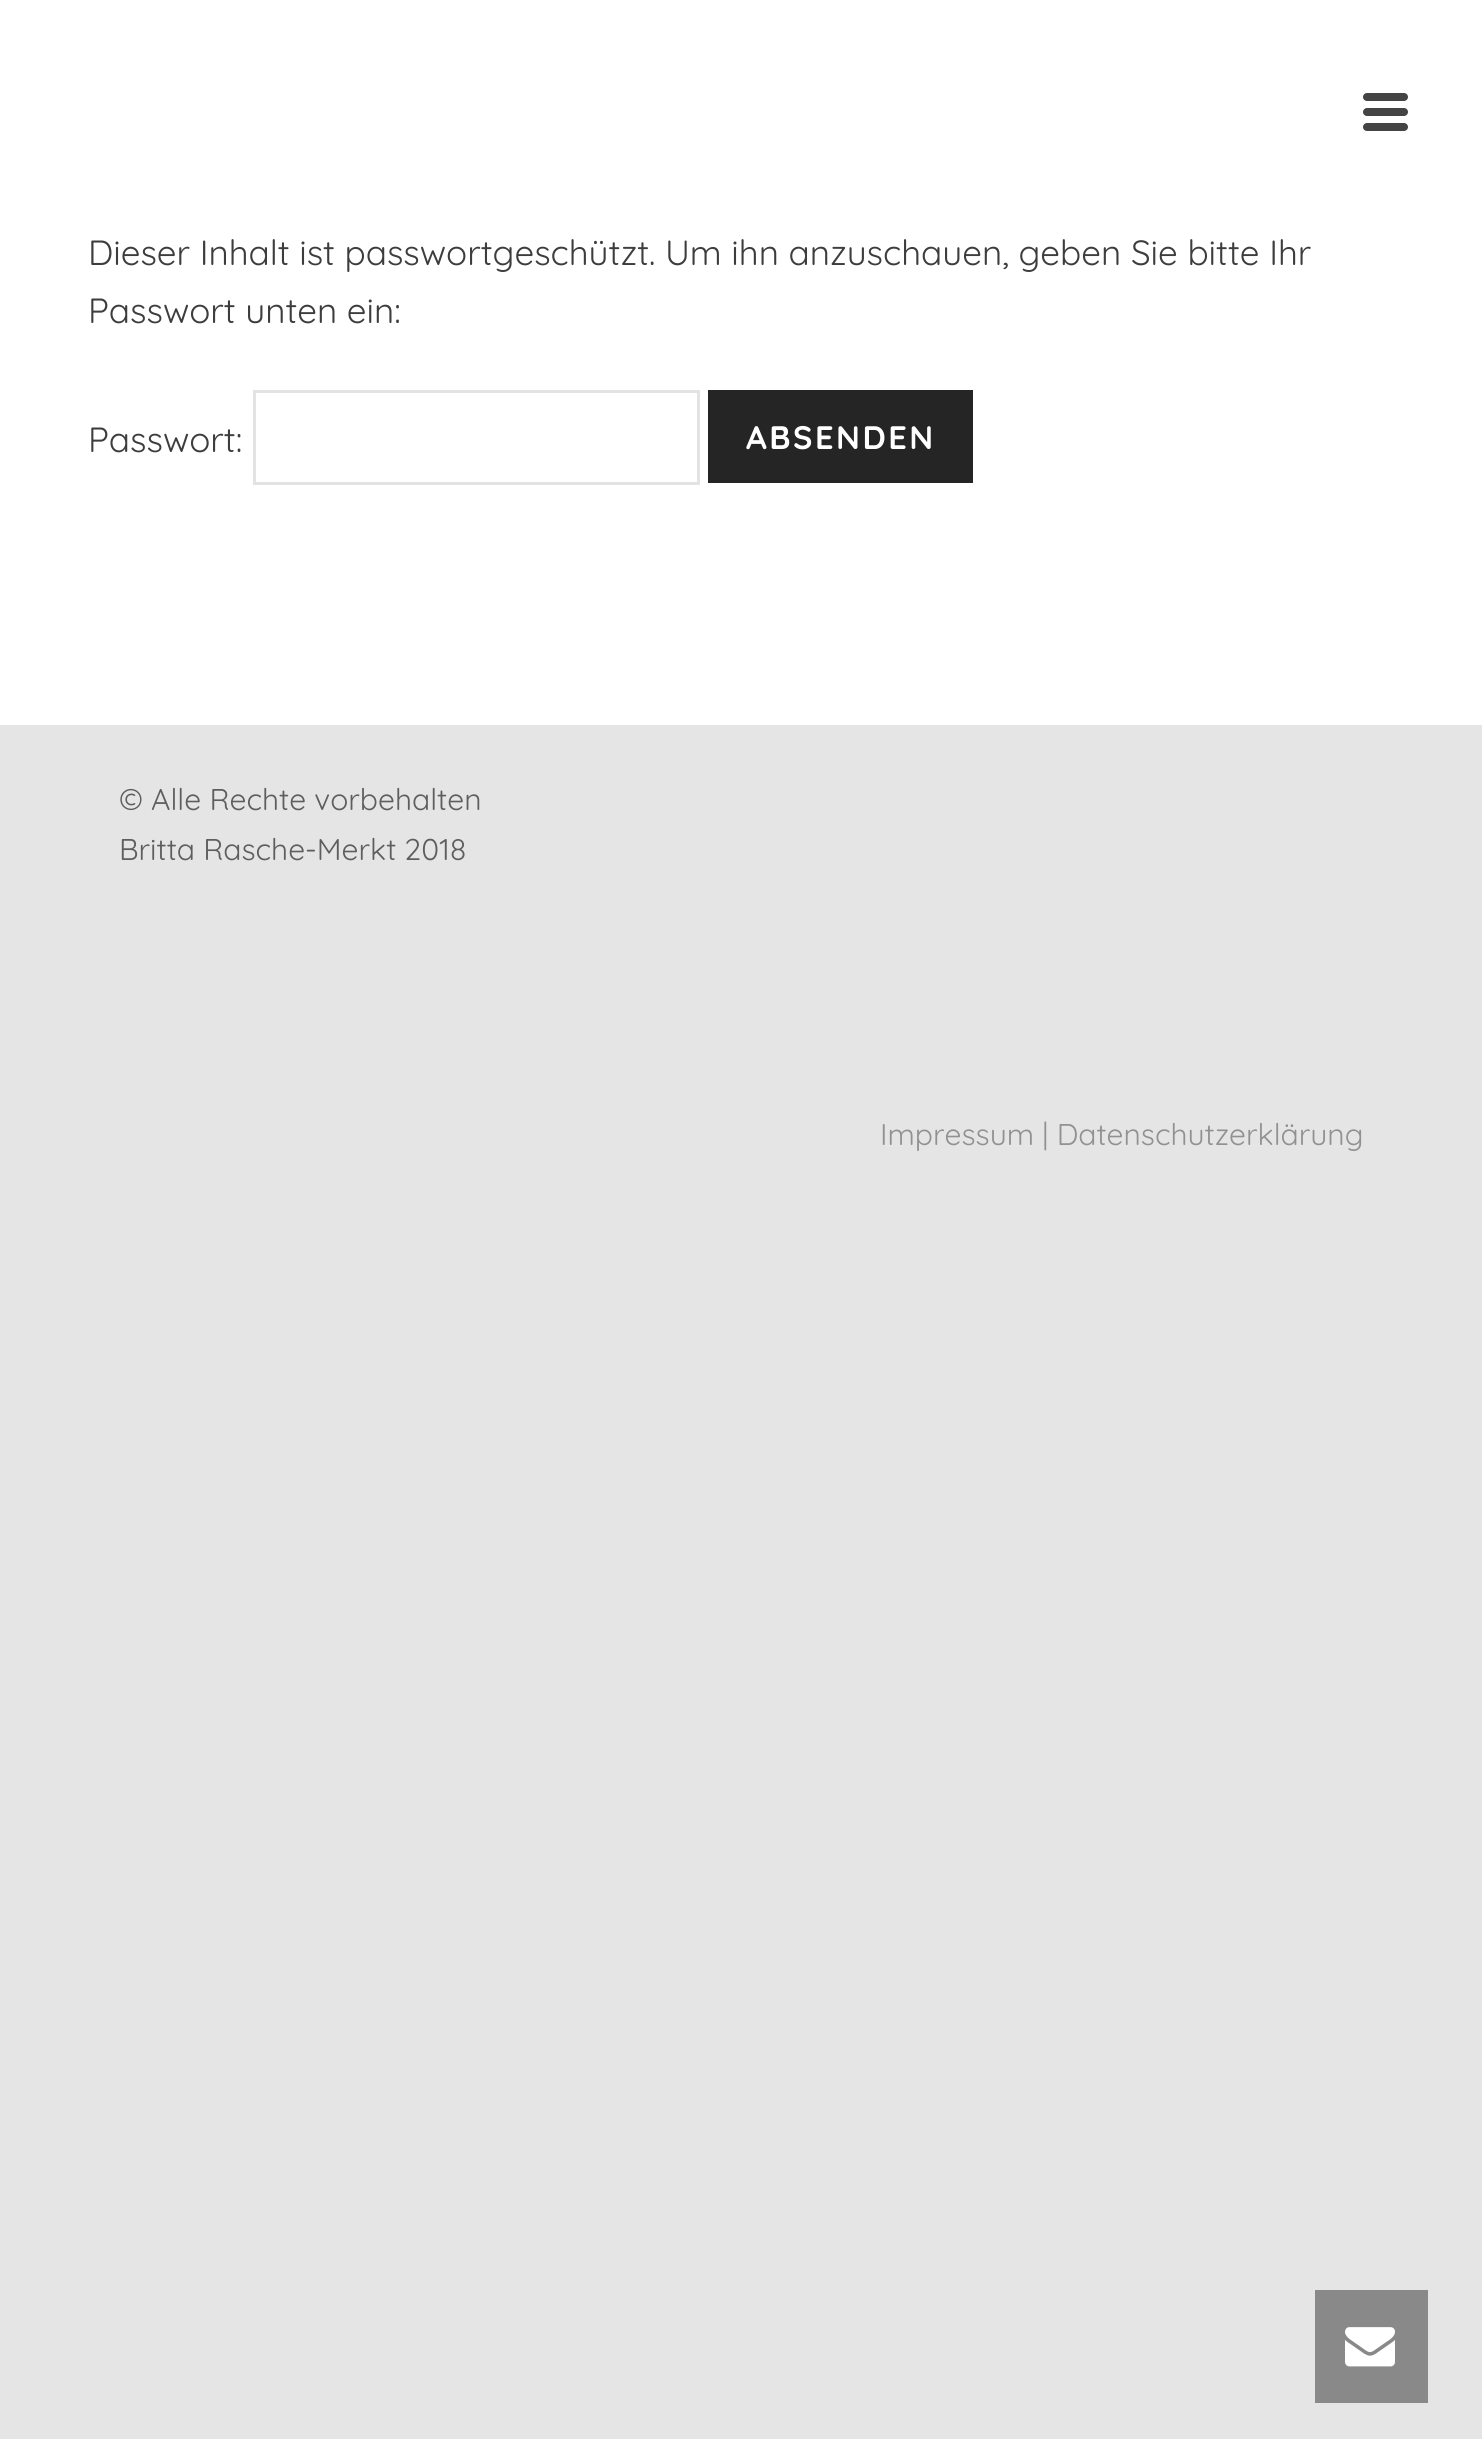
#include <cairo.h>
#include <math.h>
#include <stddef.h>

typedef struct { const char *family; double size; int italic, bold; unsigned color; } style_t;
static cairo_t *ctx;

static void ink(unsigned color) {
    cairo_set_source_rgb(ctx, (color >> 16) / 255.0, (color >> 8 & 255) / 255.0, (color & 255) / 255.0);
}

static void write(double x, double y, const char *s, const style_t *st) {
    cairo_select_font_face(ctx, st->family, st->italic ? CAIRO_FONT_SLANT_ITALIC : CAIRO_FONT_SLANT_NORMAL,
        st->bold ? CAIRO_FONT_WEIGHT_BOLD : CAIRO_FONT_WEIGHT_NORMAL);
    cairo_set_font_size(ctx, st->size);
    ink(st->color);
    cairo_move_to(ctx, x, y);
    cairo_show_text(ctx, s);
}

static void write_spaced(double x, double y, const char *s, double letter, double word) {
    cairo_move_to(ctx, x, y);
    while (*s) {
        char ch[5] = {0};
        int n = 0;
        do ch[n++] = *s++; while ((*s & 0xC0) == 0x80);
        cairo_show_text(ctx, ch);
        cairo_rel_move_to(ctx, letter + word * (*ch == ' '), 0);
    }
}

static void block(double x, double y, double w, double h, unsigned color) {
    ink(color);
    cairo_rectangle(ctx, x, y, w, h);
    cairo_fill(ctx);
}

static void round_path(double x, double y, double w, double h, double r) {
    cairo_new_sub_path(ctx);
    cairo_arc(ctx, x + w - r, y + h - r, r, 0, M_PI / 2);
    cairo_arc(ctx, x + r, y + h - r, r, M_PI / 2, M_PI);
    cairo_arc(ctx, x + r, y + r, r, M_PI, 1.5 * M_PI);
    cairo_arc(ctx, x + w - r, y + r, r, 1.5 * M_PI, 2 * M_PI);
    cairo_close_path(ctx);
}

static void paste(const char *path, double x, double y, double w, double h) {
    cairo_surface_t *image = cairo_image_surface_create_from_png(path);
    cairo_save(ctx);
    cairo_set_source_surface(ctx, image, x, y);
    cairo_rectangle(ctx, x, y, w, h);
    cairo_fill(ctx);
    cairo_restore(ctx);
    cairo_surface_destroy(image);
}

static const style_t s1 = {"Quicksand", 35, 0, 0, 0x3d3d3d};
static const style_t s2 = {"Quicksand", 30, 0, 0, 0x5e5e5e};
static const style_t s3 = {"Quicksand", 30, 0, 0, 0x919191};

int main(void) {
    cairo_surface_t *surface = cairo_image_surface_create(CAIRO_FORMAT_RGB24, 1482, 2439);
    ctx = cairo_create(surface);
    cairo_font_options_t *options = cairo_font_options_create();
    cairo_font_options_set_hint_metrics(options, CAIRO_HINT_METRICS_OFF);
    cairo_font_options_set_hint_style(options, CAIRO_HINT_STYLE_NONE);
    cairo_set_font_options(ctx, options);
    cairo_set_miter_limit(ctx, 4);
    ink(0xe5e5e5);
    cairo_paint(ctx);
    block(0, 0, 1482, 725, 0xffffff);
    ink(0x444444);
    round_path(1363, 93, 45, 8, 4);
    cairo_fill(ctx);
    round_path(1363, 108, 45, 8, 4);
    cairo_fill(ctx);
    round_path(1363, 123, 45, 8, 4);
    cairo_fill(ctx);
    write(88, 265, "Dieser Inhalt ist passwortgeschützt. Um ihn anzuschauen, geben Sie bitte Ihr", &s1);
    write(88, 323, "Passwort unten ein:", &s1);
    write(88, 452, "Passwort:", &s1);
    cairo_rectangle(ctx, 254.5, 391.5, 444, 92);
    ink(0xe3e3e3);
    cairo_set_line_width(ctx, 3);
    cairo_stroke(ctx);
    block(708, 390, 265, 93, 0x252525);
    cairo_select_font_face(ctx, "Quicksand", CAIRO_FONT_SLANT_NORMAL, CAIRO_FONT_WEIGHT_BOLD);
    cairo_set_font_size(ctx, 32.5);
    ink(0xffffff);
    write_spaced(746, 449, "ABSENDEN", 2.5, 0);
    write(119, 810, "© Alle Rechte vorbehalten", &s2);
    write(119, 860, "Britta Rasche-Merkt 2018", &s2);
    write(880, 1145, "Impressum | Datenschutzerklärung", &s3);
    block(1315, 2290, 113, 113, 0x898989);
    paste("pic1.png", 1345, 2327, 50, 40);
    cairo_surface_write_to_png(surface, "screenshot.png");
    cairo_font_options_destroy(options);
    cairo_destroy(ctx);
    cairo_surface_destroy(surface);
    return 0;
}
